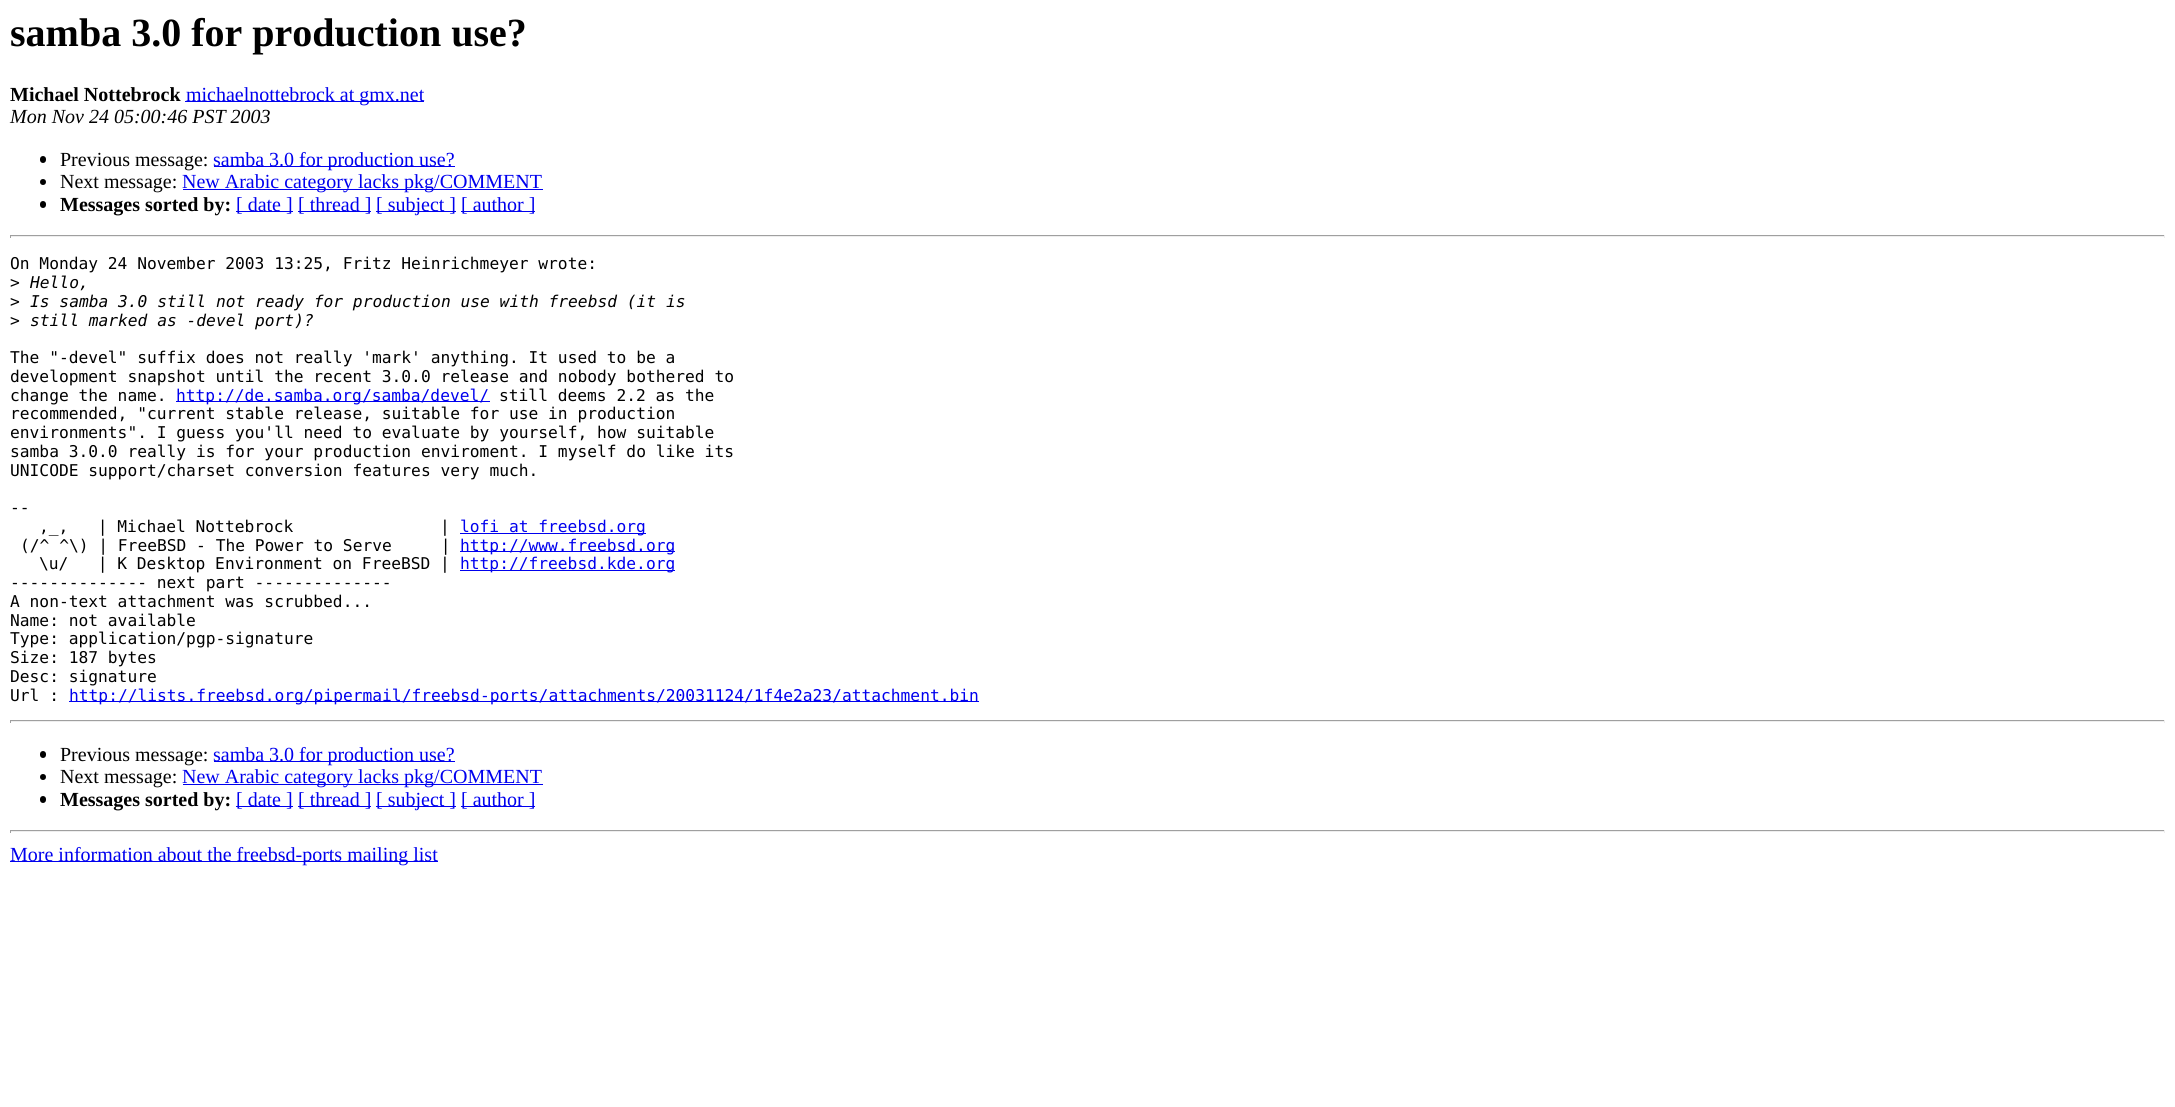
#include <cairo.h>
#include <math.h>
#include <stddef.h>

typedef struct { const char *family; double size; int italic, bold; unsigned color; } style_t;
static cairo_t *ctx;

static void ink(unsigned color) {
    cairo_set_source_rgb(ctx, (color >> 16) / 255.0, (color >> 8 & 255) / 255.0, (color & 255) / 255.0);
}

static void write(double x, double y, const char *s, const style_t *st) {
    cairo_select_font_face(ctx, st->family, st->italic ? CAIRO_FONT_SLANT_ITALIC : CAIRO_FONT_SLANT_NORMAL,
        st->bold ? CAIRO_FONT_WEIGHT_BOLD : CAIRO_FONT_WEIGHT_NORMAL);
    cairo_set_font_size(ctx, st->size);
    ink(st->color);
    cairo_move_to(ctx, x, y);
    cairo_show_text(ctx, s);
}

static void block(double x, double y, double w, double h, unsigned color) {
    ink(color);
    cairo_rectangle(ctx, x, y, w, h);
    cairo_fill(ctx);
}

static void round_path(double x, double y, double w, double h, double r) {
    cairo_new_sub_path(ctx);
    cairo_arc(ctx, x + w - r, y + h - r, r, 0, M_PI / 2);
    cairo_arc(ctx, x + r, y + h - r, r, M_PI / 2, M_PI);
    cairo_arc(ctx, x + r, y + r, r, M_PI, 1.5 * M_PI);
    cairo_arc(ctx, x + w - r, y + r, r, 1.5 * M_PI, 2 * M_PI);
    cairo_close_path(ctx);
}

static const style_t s1 = {"Liberation Serif", 40, 0, 1, 0x000000};
static const style_t s2 = {"Liberation Serif", 20, 0, 1, 0x000000};
static const style_t s3 = {"Liberation Serif", 20, 0, 0, 0x0000ee};
static const style_t s4 = {"Liberation Serif", 20, 1, 0, 0x000000};
static const style_t s5 = {"Liberation Serif", 20, 0, 0, 0x000000};
static const style_t s6 = {"DejaVu Sans Mono", 16.25, 0, 0, 0x000000};
static const style_t s7 = {"DejaVu Sans Mono", 16.25, 1, 0, 0x000000};
static const style_t s8 = {"DejaVu Sans Mono", 16.25, 0, 0, 0x0000ee};

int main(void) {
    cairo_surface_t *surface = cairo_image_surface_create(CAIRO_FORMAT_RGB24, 2175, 1107);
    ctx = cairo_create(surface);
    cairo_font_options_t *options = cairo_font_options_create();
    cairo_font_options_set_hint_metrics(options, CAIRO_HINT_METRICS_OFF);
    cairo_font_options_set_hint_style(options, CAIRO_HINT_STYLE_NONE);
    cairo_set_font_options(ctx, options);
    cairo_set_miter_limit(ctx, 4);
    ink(0xffffff);
    cairo_paint(ctx);
    write(10, 46, "samba 3.0 for production use?", &s1);
    write(10, 101, "Michael Nottebrock", &s2);
    block(185, 101, 239, 1, 0x0000ee);
    write(186, 101, "michaelnottebrock at gmx.net", &s3);
    write(10, 123, "Mon Nov 24 05:00:46 PST 2003", &s4);
    round_path(40, 156, 6, 7, 3);
    cairo_fill(ctx);
    write(60, 166, "Previous message:", &s5);
    block(214, 166, 241, 1, 0x0000ee);
    write(213, 166, "samba 3.0 for production use?", &s3);
    ink(0x000000);
    cairo_new_path(ctx);
    cairo_arc(ctx, 43, 182, 3, 0, 2 * M_PI);
    cairo_fill(ctx);
    write(60, 188, "Next message:", &s5);
    block(183, 189, 360, 1, 0x0000ee);
    write(182, 188, "New Arabic category lacks pkg/COMMENT", &s3);
    ink(0x000000);
    round_path(40, 201, 6, 7, 3);
    cairo_fill(ctx);
    write(60, 211, "Messages sorted by:", &s2);
    block(236, 211, 57, 1, 0x0000ee);
    write(236, 211, "[ date ]", &s3);
    block(298, 211, 73, 1, 0x0000ee);
    write(298, 211, "[ thread ]", &s3);
    block(376, 211, 80, 1, 0x0000ee);
    write(376, 211, "[ subject ]", &s3);
    block(461, 211, 74, 1, 0x0000ee);
    write(461, 211, "[ author ]", &s3);
    block(10, 235, 2155, 1, 0x9f9f9f);
    block(2164, 235, 1, 3, 0xeeeeee);
    block(10, 236, 2155, 1, 0xeeeeee);
    block(10, 235, 1, 3, 0x9f9f9f);
    write(10, 269, "On Monday 24 November 2003 13:25, Fritz Heinrichmeyer wrote:", &s6);
    write(10, 288, ">", &s6);
    write(30, 288, "Hello,", &s7);
    write(10, 307, ">", &s6);
    write(30, 307, "Is samba 3.0 still not ready for production use with freebsd (it is", &s7);
    write(10, 326, ">", &s6);
    write(30, 326, "still marked as -devel port)?", &s7);
    write(10, 363, "The \"-devel\" suffix does not really 'mark' anything. It used to be a", &s6);
    write(10, 382, "development snapshot until the recent 3.0.0 release and nobody bothered to", &s6);
    write(10, 401, "change the name.", &s6);
    block(176, 401, 314, 1, 0x0000ee);
    write(176, 401, "http://de.samba.org/samba/devel/", &s8);
    write(499, 401, "still deems 2.2 as the", &s6);
    write(10, 419, "recommended, \"current stable release, suitable for use in production", &s6);
    write(10, 438, "environments\". I guess you'll need to evaluate by yourself, how suitable", &s6);
    write(10, 457, "samba 3.0.0 really is for your production enviroment. I myself do like its", &s6);
    write(10, 476, "UNICODE support/charset conversion features very much.", &s6);
    write(10, 513, "--", &s6);
    write(39, 532, ",_,   | Michael Nottebrock               |", &s6);
    block(460, 533, 186, 1, 0x0000ee);
    write(460, 532, "lofi at freebsd.org", &s8);
    write(20, 551, "(/^ ^\\) | FreeBSD - The Power to Serve     |", &s6);
    block(460, 551, 215, 1, 0x0000ee);
    write(460, 551, "http://www.freebsd.org", &s8);
    write(39, 569, "\\u/   | K Desktop Environment on FreeBSD |", &s6);
    block(460, 570, 215, 1, 0x0000ee);
    write(460, 569, "http://freebsd.kde.org", &s8);
    write(10, 588, "-------------- next part --------------", &s6);
    write(10, 607, "A non-text attachment was scrubbed...", &s6);
    write(10, 626, "Name: not available", &s6);
    write(10, 644, "Type: application/pgp-signature", &s6);
    write(10, 663, "Size: 187 bytes", &s6);
    write(10, 682, "Desc: signature", &s6);
    write(10, 701, "Url :", &s6);
    block(69, 701, 910, 1, 0x0000ee);
    write(69, 701, "http://lists.freebsd.org/pipermail/freebsd-ports/attachments/20031124/1f4e2a23/attachment.bin", &s8);
    block(10, 720, 2155, 1, 0x9f9f9f);
    block(2164, 720, 1, 3, 0xeeeeee);
    block(10, 721, 2155, 1, 0xeeeeee);
    block(10, 720, 1, 3, 0x9f9f9f);
    ink(0x000000);
    round_path(40, 751, 6, 7, 3);
    cairo_fill(ctx);
    write(60, 761, "Previous message:", &s5);
    block(214, 761, 241, 1, 0x0000ee);
    write(213, 761, "samba 3.0 for production use?", &s3);
    ink(0x000000);
    cairo_new_path(ctx);
    cairo_arc(ctx, 43, 777, 3, 0, 2 * M_PI);
    cairo_fill(ctx);
    write(60, 783, "Next message:", &s5);
    block(183, 784, 360, 1, 0x0000ee);
    write(182, 783, "New Arabic category lacks pkg/COMMENT", &s3);
    ink(0x000000);
    round_path(40, 796, 6, 7, 3);
    cairo_fill(ctx);
    write(60, 806, "Messages sorted by:", &s2);
    block(236, 806, 57, 1, 0x0000ee);
    write(236, 806, "[ date ]", &s3);
    block(298, 806, 73, 1, 0x0000ee);
    write(298, 806, "[ thread ]", &s3);
    block(376, 806, 80, 1, 0x0000ee);
    write(376, 806, "[ subject ]", &s3);
    block(461, 806, 74, 1, 0x0000ee);
    write(461, 806, "[ author ]", &s3);
    block(10, 830, 2155, 1, 0x9f9f9f);
    block(2164, 830, 1, 3, 0xeeeeee);
    block(10, 831, 2155, 1, 0xeeeeee);
    block(10, 830, 1, 3, 0x9f9f9f);
    block(10, 861, 428, 1, 0x0000ee);
    write(10, 861, "More information about the freebsd-ports mailing list", &s3);
    cairo_surface_write_to_png(surface, "screenshot.png");
    cairo_font_options_destroy(options);
    cairo_destroy(ctx);
    cairo_surface_destroy(surface);
    return 0;
}
